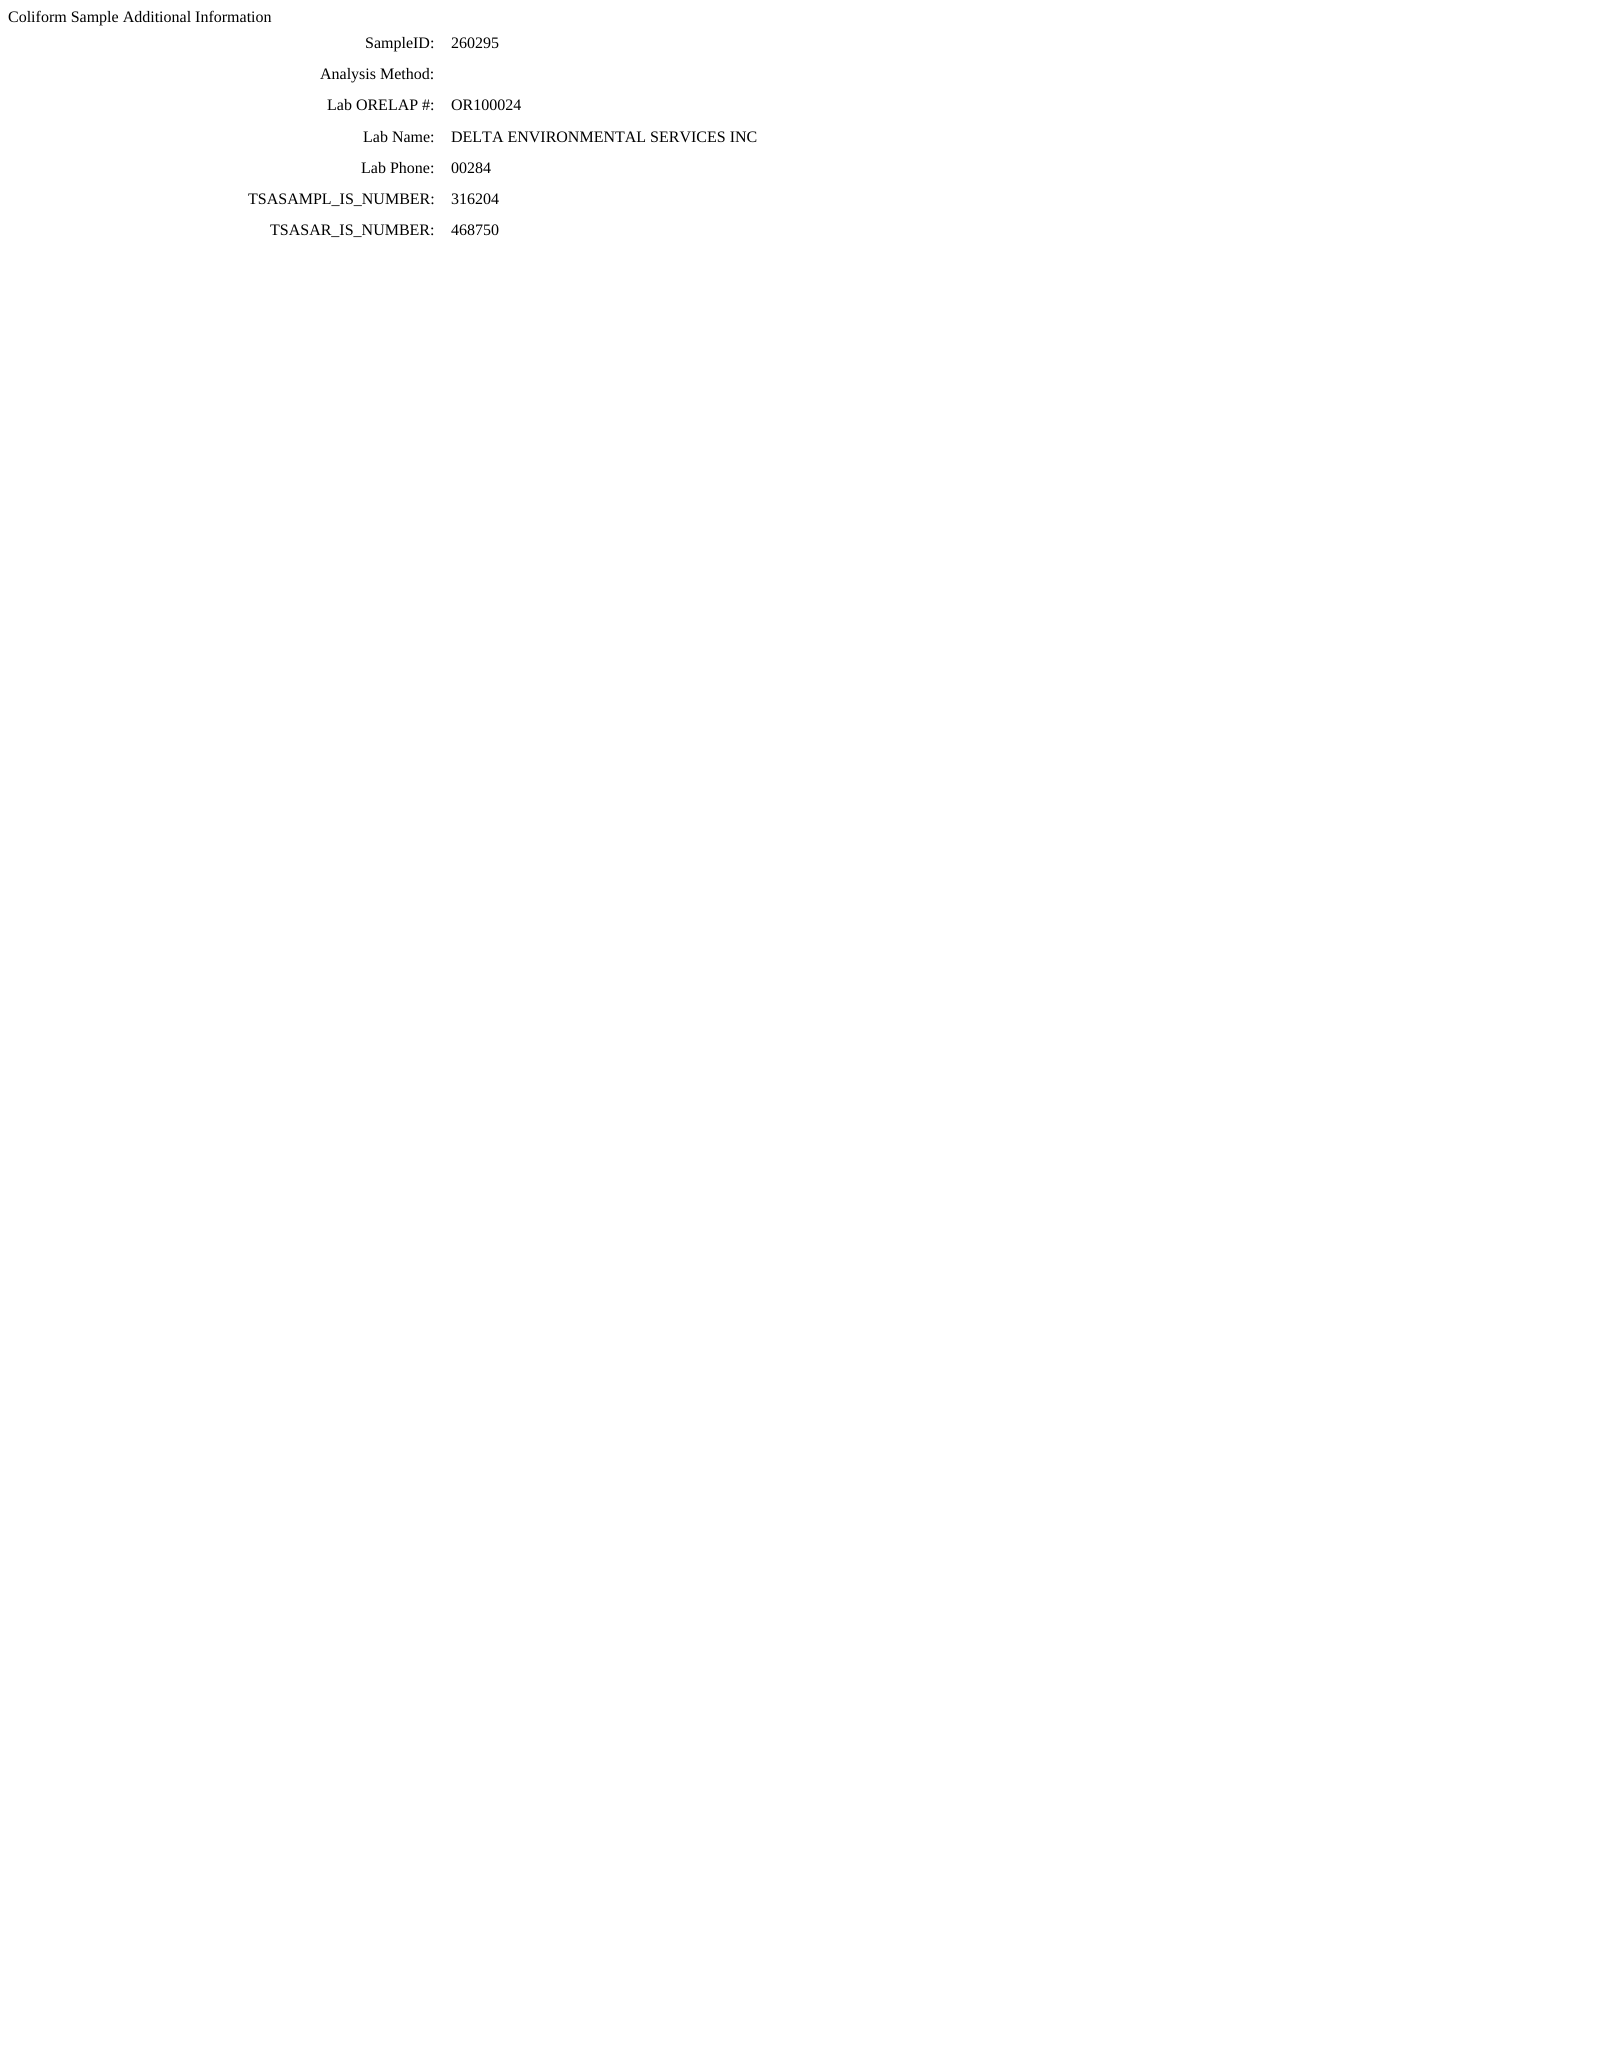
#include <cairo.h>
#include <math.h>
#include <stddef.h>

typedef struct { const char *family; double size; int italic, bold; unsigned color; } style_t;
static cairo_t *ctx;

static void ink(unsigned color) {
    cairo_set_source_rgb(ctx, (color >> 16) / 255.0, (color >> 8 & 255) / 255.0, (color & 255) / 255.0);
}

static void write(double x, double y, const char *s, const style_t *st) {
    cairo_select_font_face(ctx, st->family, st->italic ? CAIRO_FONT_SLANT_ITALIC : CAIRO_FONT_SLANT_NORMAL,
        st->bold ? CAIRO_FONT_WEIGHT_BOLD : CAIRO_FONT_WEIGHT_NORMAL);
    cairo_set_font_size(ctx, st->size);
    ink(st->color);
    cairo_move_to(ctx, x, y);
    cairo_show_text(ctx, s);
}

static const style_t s1 = {"Liberation Serif", 16, 0, 0, 0x000000};

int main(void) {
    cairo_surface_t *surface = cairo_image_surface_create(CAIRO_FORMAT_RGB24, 1610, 2052);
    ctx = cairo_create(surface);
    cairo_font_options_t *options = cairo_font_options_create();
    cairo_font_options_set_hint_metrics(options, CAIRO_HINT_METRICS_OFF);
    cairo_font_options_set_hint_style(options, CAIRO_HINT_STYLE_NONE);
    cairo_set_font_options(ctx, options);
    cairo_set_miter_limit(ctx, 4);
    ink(0xffffff);
    cairo_paint(ctx);
    write(8, 22, "Coliform Sample Additional Information", &s1);
    write(365, 48, "SampleID:", &s1);
    write(451, 48, "260295", &s1);
    write(320, 79, "Analysis Method:", &s1);
    write(327, 110, "Lab ORELAP #:", &s1);
    write(451, 110, "OR100024", &s1);
    write(363, 142, "Lab Name:", &s1);
    write(451, 142, "DELTA ENVIRONMENTAL SERVICES INC", &s1);
    write(361, 173, "Lab Phone:", &s1);
    write(451, 173, "00284", &s1);
    write(248, 204, "TSASAMPL_IS_NUMBER:", &s1);
    write(451, 204, "316204", &s1);
    write(270, 235, "TSASAR_IS_NUMBER:", &s1);
    write(451, 235, "468750", &s1);
    cairo_surface_write_to_png(surface, "screenshot.png");
    cairo_font_options_destroy(options);
    cairo_destroy(ctx);
    cairo_surface_destroy(surface);
    return 0;
}
